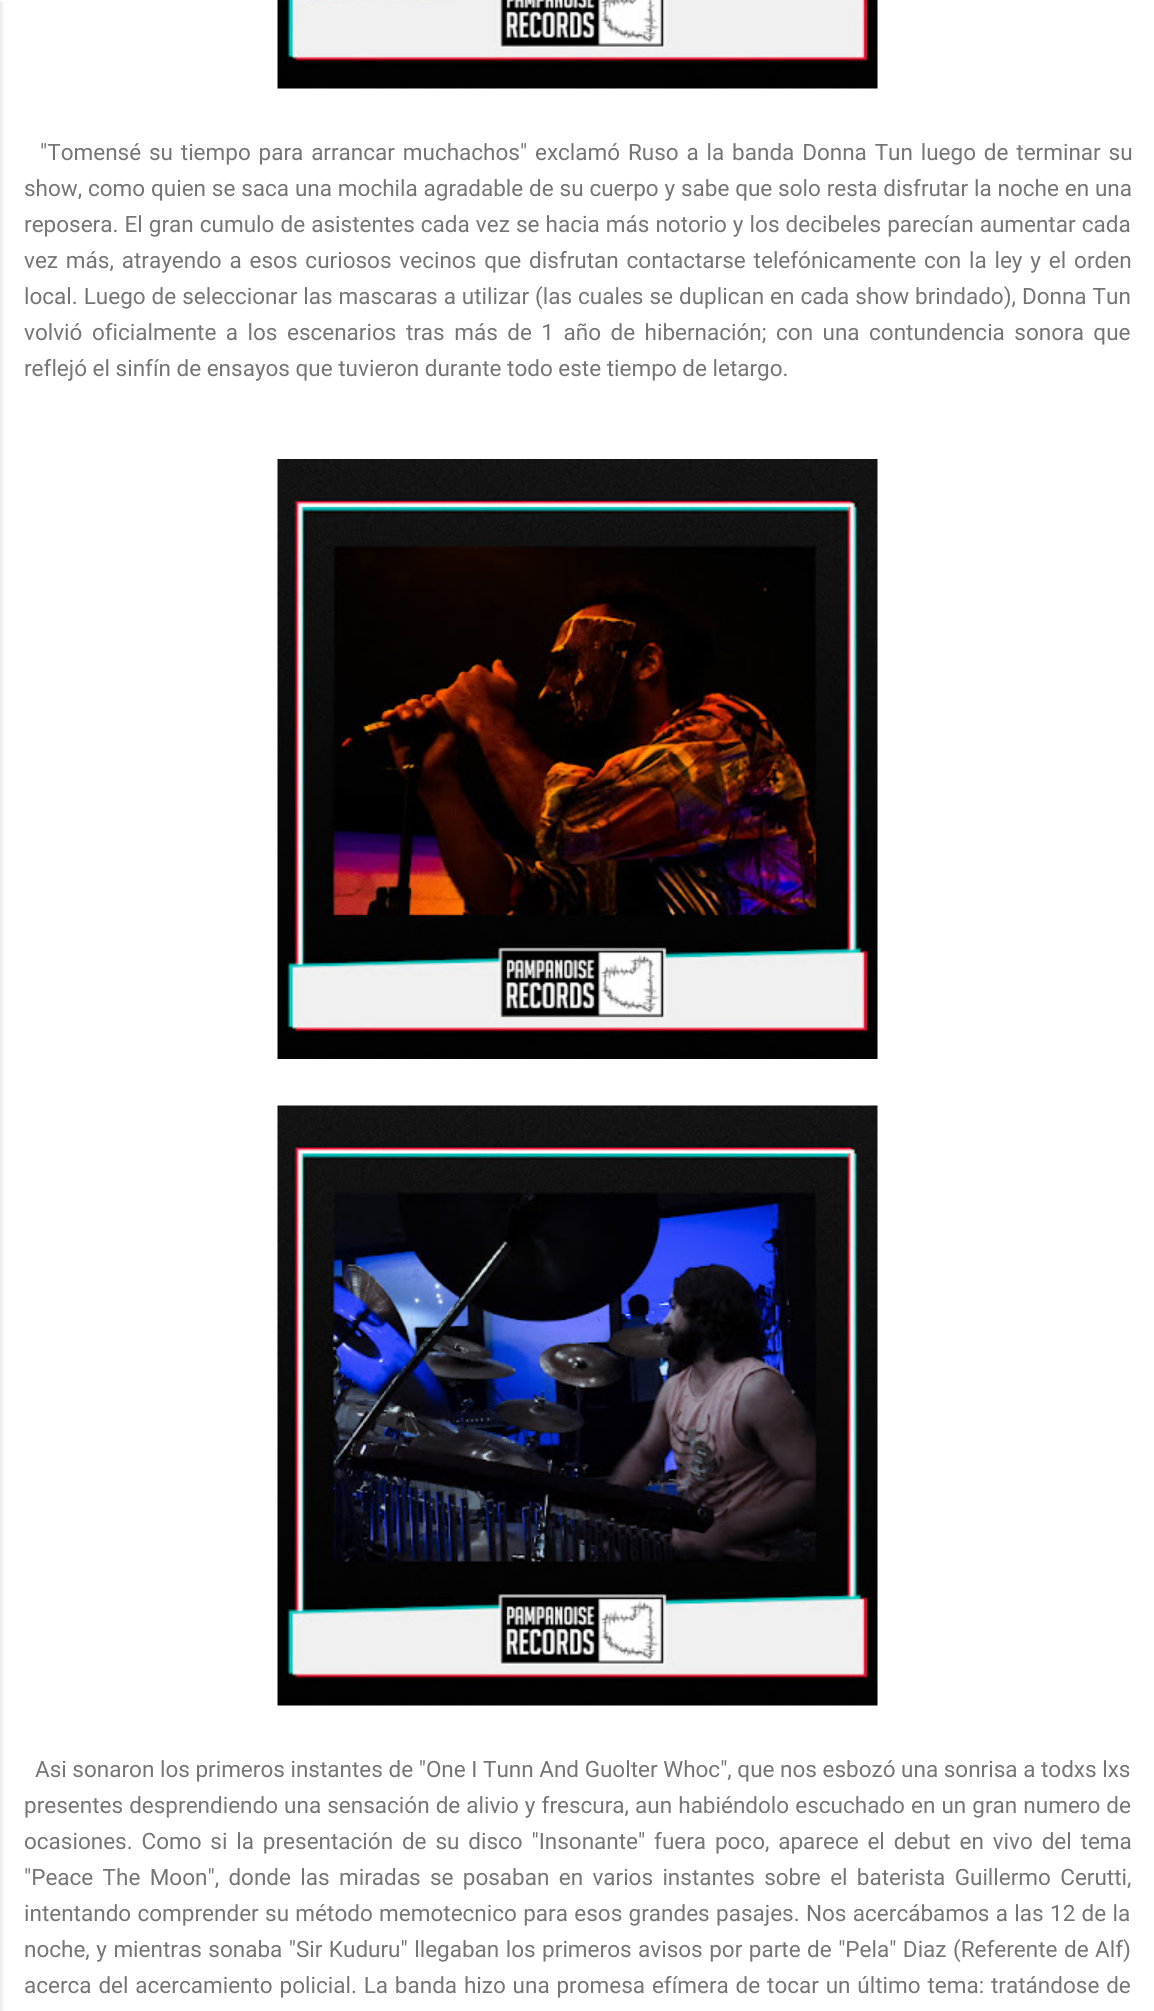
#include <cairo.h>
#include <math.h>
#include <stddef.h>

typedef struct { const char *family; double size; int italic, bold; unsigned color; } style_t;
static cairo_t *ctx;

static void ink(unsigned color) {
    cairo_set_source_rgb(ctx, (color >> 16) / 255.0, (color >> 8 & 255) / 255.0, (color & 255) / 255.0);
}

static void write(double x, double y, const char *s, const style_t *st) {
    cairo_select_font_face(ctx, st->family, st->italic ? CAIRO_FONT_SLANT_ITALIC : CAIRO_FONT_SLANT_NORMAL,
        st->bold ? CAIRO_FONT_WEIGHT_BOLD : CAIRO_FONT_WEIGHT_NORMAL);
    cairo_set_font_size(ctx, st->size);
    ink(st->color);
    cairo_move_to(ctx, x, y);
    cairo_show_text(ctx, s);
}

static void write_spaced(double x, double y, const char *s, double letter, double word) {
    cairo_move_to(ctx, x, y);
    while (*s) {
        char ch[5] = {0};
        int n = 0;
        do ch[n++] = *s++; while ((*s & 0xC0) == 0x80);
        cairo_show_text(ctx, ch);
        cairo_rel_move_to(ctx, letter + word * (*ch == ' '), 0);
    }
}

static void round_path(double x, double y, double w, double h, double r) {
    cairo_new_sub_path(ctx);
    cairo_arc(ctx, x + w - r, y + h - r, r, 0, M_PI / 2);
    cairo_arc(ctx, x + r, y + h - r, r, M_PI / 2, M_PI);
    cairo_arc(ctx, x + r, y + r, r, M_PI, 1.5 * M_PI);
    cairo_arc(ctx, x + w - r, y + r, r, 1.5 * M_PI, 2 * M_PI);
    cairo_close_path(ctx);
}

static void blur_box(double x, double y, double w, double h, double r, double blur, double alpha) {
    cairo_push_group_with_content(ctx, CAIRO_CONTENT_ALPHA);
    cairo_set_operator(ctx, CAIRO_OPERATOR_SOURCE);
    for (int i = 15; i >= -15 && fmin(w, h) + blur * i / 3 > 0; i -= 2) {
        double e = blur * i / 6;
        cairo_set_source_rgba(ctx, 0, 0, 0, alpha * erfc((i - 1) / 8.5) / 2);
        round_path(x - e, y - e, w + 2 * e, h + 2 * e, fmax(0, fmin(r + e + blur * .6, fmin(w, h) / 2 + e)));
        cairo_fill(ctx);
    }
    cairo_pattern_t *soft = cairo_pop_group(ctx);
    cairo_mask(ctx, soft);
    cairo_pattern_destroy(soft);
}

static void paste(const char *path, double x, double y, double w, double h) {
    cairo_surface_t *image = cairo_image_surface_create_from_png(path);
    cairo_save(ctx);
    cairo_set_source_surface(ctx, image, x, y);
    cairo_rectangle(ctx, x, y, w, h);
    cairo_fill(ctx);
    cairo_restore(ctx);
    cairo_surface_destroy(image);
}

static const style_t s1 = {"Roboto", 22.5, 0, 0, 0x757575};

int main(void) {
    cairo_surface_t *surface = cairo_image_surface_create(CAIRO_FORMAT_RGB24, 1154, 2011);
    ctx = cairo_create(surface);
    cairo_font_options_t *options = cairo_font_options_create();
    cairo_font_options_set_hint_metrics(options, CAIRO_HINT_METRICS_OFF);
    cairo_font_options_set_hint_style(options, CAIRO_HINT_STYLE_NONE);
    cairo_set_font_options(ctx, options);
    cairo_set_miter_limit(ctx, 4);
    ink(0xffffff);
    cairo_paint(ctx);
    ink(0x000000);
    blur_box(-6, 2, 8, 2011, 0, 2, 0.1);
    paste("pic1.png", 277, 0, 601, 89);
    cairo_select_font_face(ctx, "Roboto", CAIRO_FONT_SLANT_NORMAL, CAIRO_FONT_WEIGHT_NORMAL);
    cairo_set_font_size(ctx, 22.5);
    ink(0x757575);
    write_spaced(40, 160, "\"Tomensé su tiempo para arrancar muchachos\" exclamó Ruso a la banda Donna Tun luego de terminar su", 0, 2.25);
    write_spaced(24, 196, "show, como quien se saca una mochila agradable de su cuerpo y sabe que solo resta disfrutar la noche en una", 0, 0.25);
    write_spaced(24, 232, "reposera. El gran cumulo de asistentes cada vez se hacia más notorio y los decibeles parecían aumentar cada", 0, 0.5);
    write_spaced(24, 268, "vez más, atrayendo a esos curiosos vecinos que disfrutan contactarse telefónicamente con la ley y el orden", 0, 2.25);
    write_spaced(24, 304, "local. Luego de seleccionar las mascaras a utilizar (las cuales se duplican en cada show brindado), Donna Tun", 0, 0.4);
    write_spaced(24, 340, "volvió oficialmente a los escenarios tras más de 1 año de hibernación; con una contundencia sonora que", 0, 3.9);
    write(24, 376, "reflejó el sinfín de ensayos que tuvieron durante todo este tiempo de letargo.", &s1);
    paste("pic2.png", 277, 459, 601, 600);
    paste("pic3.png", 277, 1105, 601, 601);
    write(35, 1777, "Asi sonaron los primeros instantes de \"One I Tunn And Guolter Whoc\", que nos esbozó una sonrisa a todxs lxs", &s1);
    write_spaced(24, 1813, "presentes desprendiendo una sensación de alivio y frescura, aun habiéndolo escuchado en un gran numero de", 0, 0.5);
    write_spaced(24, 1849, "ocasiones. Como si la presentación de su disco \"Insonante\" fuera poco, aparece el debut en vivo del tema", 0, 3.25);
    write_spaced(24, 1885, "\"Peace The Moon\", donde las miradas se posaban en varios instantes sobre el baterista Guillermo Cerutti,", 0, 3.75);
    write_spaced(24, 1921, "intentando comprender su método memotecnico para esos grandes pasajes. Nos acercábamos a las 12 de la", 0, 0.75);
    write_spaced(24, 1957, "noche, y mientras sonaba \"Sir Kuduru\" llegaban los primeros avisos por parte de \"Pela\" Diaz (Referente de Alf)", 0, 0.9);
    write_spaced(24, 1993, "acerca del acercamiento policial. La banda hizo una promesa efímera de tocar un último tema: tratándose de", 0, 1.25);
    cairo_surface_write_to_png(surface, "screenshot.png");
    cairo_font_options_destroy(options);
    cairo_destroy(ctx);
    cairo_surface_destroy(surface);
    return 0;
}
